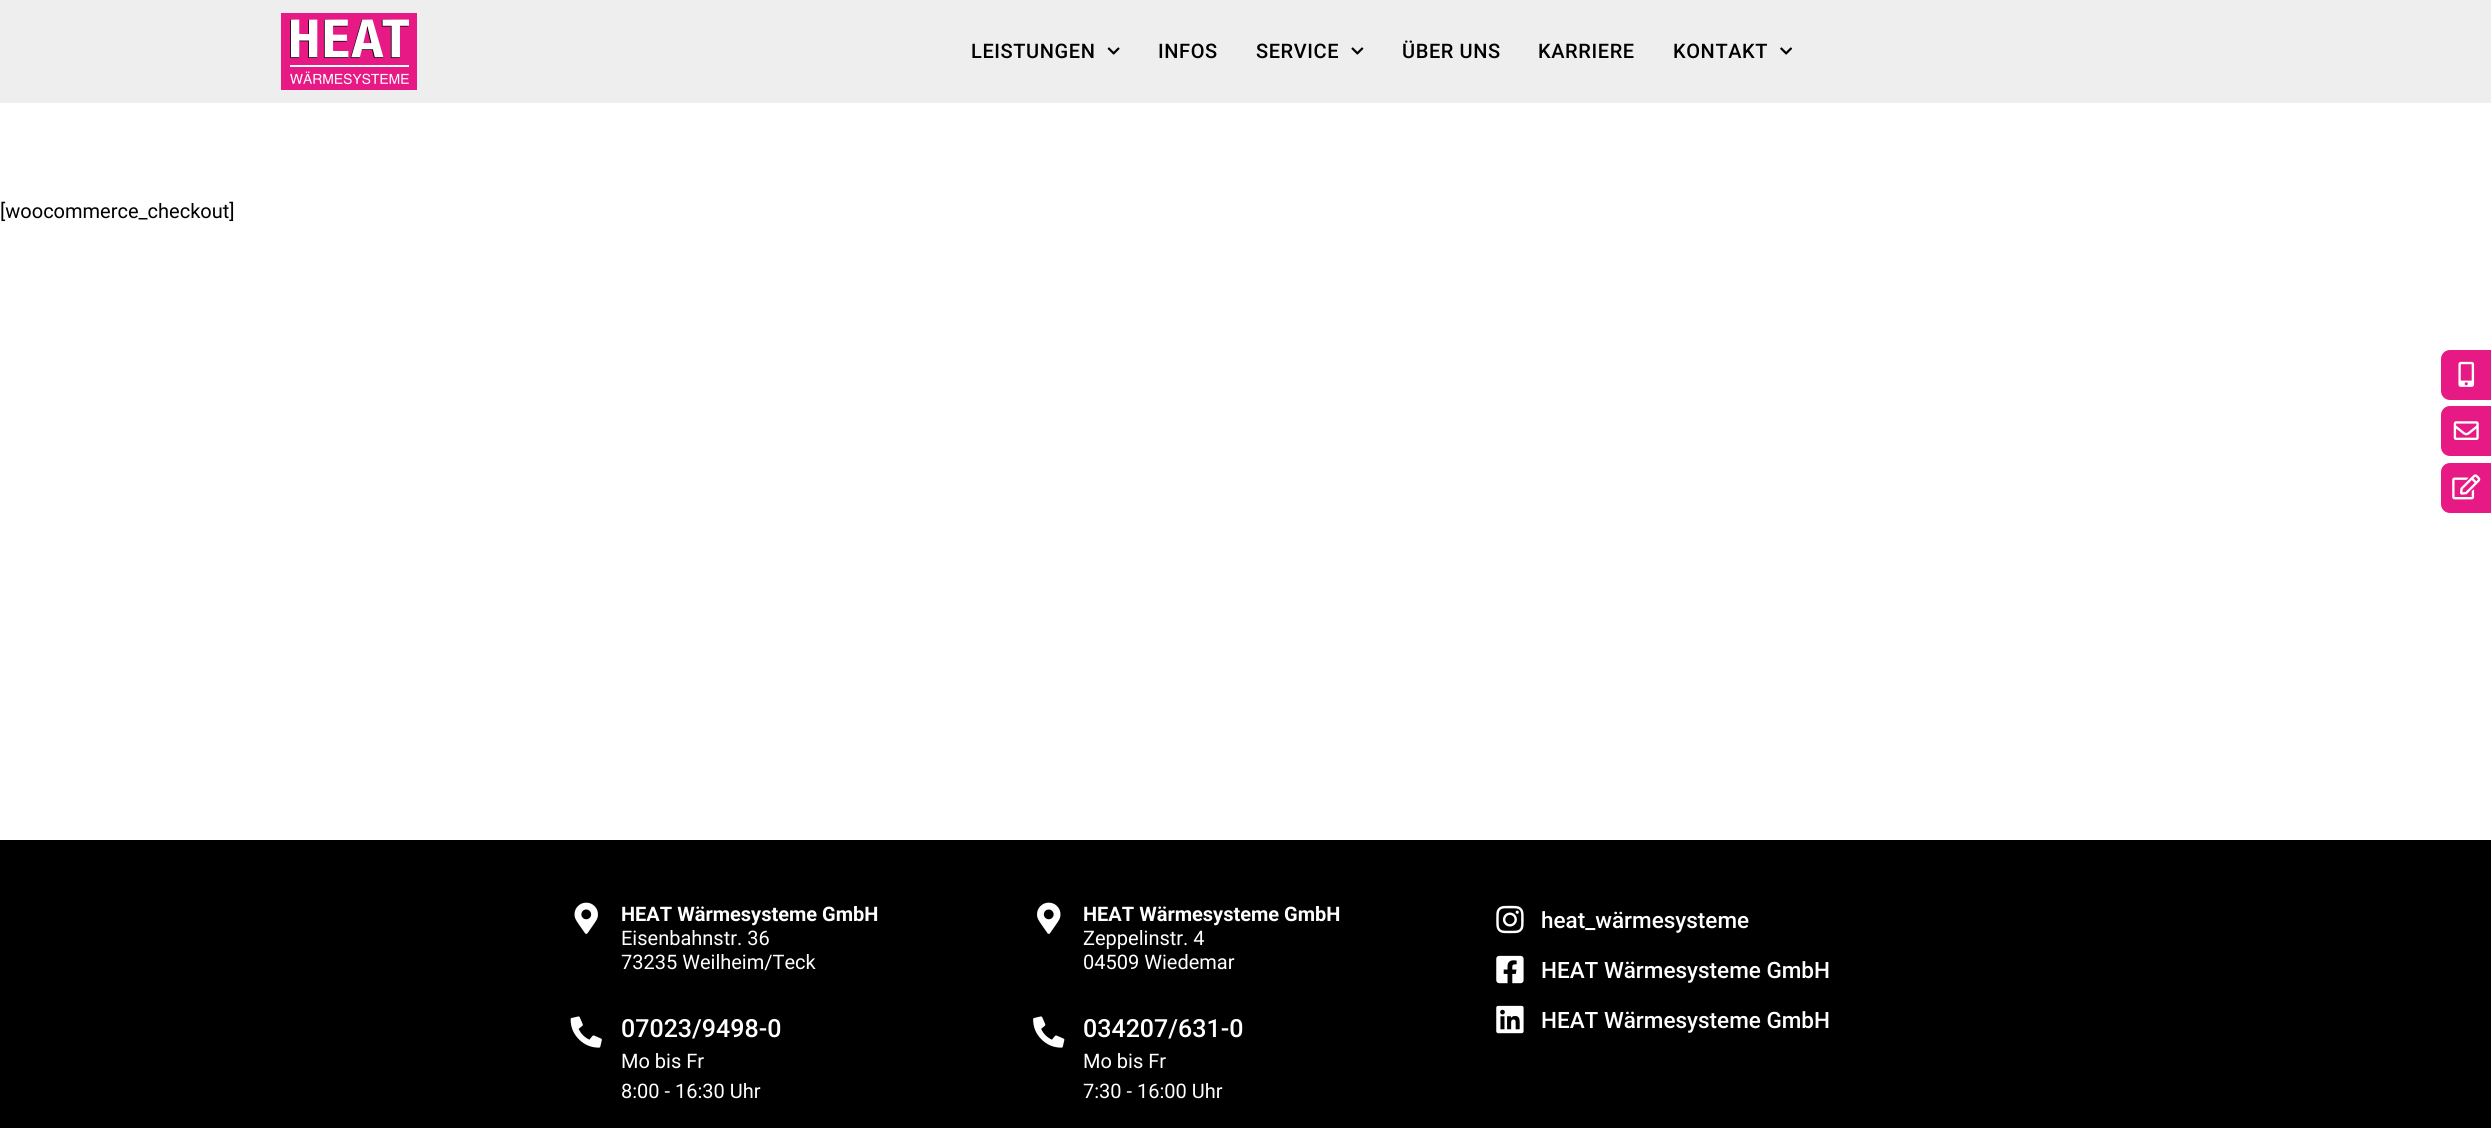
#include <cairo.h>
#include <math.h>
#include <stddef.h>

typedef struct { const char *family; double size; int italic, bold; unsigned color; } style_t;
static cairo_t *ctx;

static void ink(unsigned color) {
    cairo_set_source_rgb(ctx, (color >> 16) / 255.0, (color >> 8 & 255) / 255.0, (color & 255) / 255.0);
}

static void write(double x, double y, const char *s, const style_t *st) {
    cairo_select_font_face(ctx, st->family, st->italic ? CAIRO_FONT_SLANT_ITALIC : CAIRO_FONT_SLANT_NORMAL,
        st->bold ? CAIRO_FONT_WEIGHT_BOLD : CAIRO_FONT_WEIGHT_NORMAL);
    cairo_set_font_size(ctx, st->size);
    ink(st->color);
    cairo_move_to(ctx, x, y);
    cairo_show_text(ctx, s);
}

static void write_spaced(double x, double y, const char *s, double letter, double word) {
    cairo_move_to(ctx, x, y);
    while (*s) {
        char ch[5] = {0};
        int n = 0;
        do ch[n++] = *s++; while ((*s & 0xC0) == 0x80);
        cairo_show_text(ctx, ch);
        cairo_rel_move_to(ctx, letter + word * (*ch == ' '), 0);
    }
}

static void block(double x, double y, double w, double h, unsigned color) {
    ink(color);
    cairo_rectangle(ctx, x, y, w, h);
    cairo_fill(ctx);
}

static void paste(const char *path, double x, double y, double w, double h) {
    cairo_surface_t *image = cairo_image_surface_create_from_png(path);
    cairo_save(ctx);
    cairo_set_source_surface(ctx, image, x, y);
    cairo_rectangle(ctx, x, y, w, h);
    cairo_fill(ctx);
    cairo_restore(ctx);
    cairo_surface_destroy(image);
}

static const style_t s1 = {"Roboto", 20, 0, 0, 0x000000};
static const style_t s2 = {"Roboto", 20, 0, 1, 0xffffff};
static const style_t s3 = {"Roboto", 20, 0, 0, 0xffffff};
static const style_t s4 = {"Roboto Medium", 25, 0, 0, 0xffffff};
static const style_t s5 = {"Roboto Medium", 22.5, 0, 0, 0xffffff};

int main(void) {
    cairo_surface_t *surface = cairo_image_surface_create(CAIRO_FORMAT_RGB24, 2491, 1128);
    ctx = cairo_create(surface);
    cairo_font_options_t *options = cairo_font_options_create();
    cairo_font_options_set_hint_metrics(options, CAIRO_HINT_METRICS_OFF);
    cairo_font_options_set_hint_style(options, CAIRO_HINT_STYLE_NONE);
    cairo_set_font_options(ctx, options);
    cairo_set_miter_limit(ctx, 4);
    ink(0xffffff);
    cairo_paint(ctx);
    block(0, 0, 2491, 103, 0xeeeeee);
    paste("pic1.png", 281, 13, 136, 77);
    cairo_select_font_face(ctx, "Roboto Medium", CAIRO_FONT_SLANT_NORMAL, CAIRO_FONT_WEIGHT_NORMAL);
    cairo_set_font_size(ctx, 20);
    ink(0x000000);
    write_spaced(971, 58, "LEISTUNGEN", 0.6, 0);
    paste("pic2.png", 1107, 47, 13, 8);
    write_spaced(1158, 58, "INFOS", 0.6, 0);
    write_spaced(1256, 58, "SERVICE", 0.6, 0);
    paste("pic3.png", 1351, 47, 13, 8);
    write_spaced(1402, 58, "ÜBER UNS", 0.6, 0);
    write_spaced(1538, 58, "KARRIERE", 0.6, 0);
    write_spaced(1673, 58, "KONTAKT", 0.6, 0);
    paste("pic4.png", 1780, 47, 12, 8);
    write(0, 218, "[woocommerce_checkout]", &s1);
    ink(0xe71984);
    cairo_new_path(ctx);
    cairo_move_to(ctx, 2450, 350);
    cairo_line_to(ctx, 2491, 350);
    cairo_line_to(ctx, 2491, 400);
    cairo_line_to(ctx, 2450, 400);
    cairo_curve_to(ctx, 2445, 400, 2441, 396, 2441, 391);
    cairo_line_to(ctx, 2441, 359);
    cairo_curve_to(ctx, 2441, 354, 2445, 350, 2450, 350);
    cairo_close_path(ctx);
    cairo_fill(ctx);
    paste("pic5.png", 2458, 361, 17, 26);
    cairo_new_path(ctx);
    cairo_move_to(ctx, 2450, 406);
    cairo_line_to(ctx, 2491, 406);
    cairo_line_to(ctx, 2491, 456);
    cairo_line_to(ctx, 2450, 456);
    cairo_curve_to(ctx, 2445, 456, 2441, 452, 2441, 447);
    cairo_line_to(ctx, 2441, 415);
    cairo_curve_to(ctx, 2441, 410, 2445, 406, 2450, 406);
    cairo_close_path(ctx);
    cairo_fill(ctx);
    paste("pic6.png", 2453, 421, 26, 19);
    cairo_new_path(ctx);
    cairo_move_to(ctx, 2450, 463);
    cairo_line_to(ctx, 2491, 463);
    cairo_line_to(ctx, 2491, 513);
    cairo_line_to(ctx, 2450, 513);
    cairo_curve_to(ctx, 2445, 513, 2441, 509, 2441, 504);
    cairo_line_to(ctx, 2441, 472);
    cairo_curve_to(ctx, 2441, 467, 2445, 463, 2450, 463);
    cairo_close_path(ctx);
    cairo_fill(ctx);
    paste("pic7.png", 2452, 474, 29, 26);
    block(0, 840, 2491, 288, 0x000000);
    paste("pic8.png", 574, 902, 24, 32);
    write(621, 921, "HEAT Wärmesysteme GmbH", &s2);
    write(621, 945, "Eisenbahnstr. 36", &s3);
    write(621, 969, "73235 Weilheim/Teck", &s3);
    paste("pic9.png", 570, 1016, 32, 32);
    write(621, 1037, "07023/9498-0", &s4);
    write(621, 1068, "Mo bis Fr", &s3);
    write(621, 1098, "8:00 - 16:30 Uhr", &s3);
    paste("pic10.png", 1037, 902, 24, 32);
    write(1083, 921, "HEAT Wärmesysteme GmbH", &s2);
    write(1083, 945, "Zeppelinstr. 4", &s3);
    write(1083, 969, "04509 Wiedemar", &s3);
    paste("pic11.png", 1033, 1016, 32, 32);
    write(1083, 1037, "034207/631-0", &s4);
    write(1083, 1068, "Mo bis Fr", &s3);
    write(1083, 1098, "7:30 - 16:00 Uhr", &s3);
    paste("pic12.png", 1496, 905, 28, 29);
    write(1541, 928, "heat_wärmesysteme", &s5);
    paste("pic13.png", 1496, 955, 28, 29);
    write(1541, 978, "HEAT Wärmesysteme GmbH", &s5);
    paste("pic14.png", 1496, 1005, 28, 29);
    write(1541, 1028, "HEAT Wärmesysteme GmbH", &s5);
    cairo_surface_write_to_png(surface, "screenshot.png");
    cairo_font_options_destroy(options);
    cairo_destroy(ctx);
    cairo_surface_destroy(surface);
    return 0;
}
